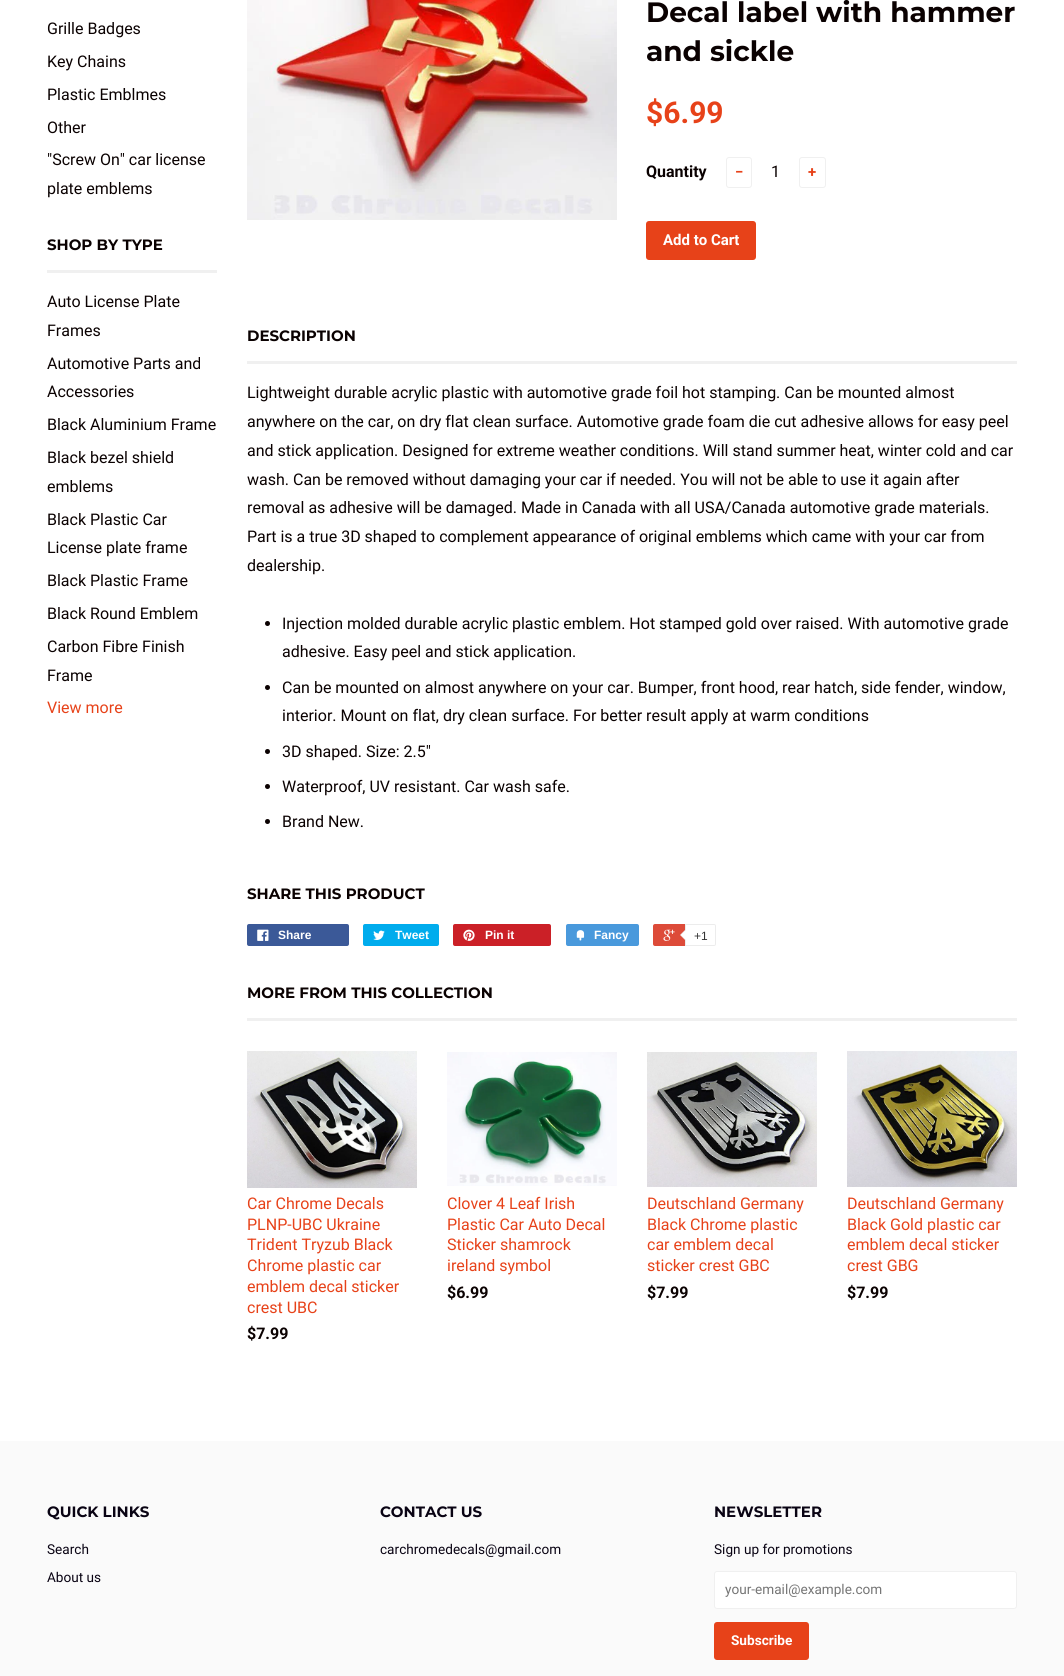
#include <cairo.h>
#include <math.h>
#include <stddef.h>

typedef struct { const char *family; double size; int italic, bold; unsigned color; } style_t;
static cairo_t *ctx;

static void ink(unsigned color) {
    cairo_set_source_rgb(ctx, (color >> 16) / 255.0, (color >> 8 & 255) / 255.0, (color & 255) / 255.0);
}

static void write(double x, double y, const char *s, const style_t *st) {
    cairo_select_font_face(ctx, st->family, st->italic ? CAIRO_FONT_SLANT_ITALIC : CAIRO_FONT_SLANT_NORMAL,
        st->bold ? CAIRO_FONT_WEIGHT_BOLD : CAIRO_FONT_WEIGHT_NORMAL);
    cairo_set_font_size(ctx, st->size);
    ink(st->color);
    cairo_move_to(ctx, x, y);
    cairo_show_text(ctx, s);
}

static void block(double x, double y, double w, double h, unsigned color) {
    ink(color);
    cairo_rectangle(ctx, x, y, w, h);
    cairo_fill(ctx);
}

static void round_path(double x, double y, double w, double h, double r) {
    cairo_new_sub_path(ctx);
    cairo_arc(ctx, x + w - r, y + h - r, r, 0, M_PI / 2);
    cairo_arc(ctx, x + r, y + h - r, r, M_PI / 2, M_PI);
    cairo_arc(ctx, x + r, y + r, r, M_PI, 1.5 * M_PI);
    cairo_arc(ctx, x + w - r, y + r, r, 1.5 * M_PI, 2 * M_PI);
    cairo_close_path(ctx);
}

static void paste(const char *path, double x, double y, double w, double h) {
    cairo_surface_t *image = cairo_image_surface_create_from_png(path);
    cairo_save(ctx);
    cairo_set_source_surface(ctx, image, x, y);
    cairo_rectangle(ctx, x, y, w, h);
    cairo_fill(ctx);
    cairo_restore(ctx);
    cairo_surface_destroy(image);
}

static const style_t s1 = {"Roboto", 16, 0, 0, 0x0a0101};
static const style_t s2 = {"Montserrat Thin", 15, 0, 0, 0x0a0101};
static const style_t s3 = {"Roboto", 16, 0, 0, 0xe74219};
static const style_t s4 = {"Montserrat Thin", 28, 0, 0, 0x0a0101};
static const style_t s5 = {"Roboto", 30, 0, 1, 0xe74219};
static const style_t s6 = {"Roboto", 16, 0, 1, 0x0a0101};
static const style_t s7 = {"Roboto", 15, 0, 1, 0xe74219};
static const style_t s8 = {"Roboto", 15, 0, 1, 0xffffff};
static const style_t s9 = {"Liberation Sans", 12, 0, 1, 0xffffff};
static const style_t s10 = {"Liberation Sans", 12, 0, 0, 0x333333};
static const style_t s11 = {"Montserrat Thin", 15, 0, 0, 0x090313};
static const style_t s12 = {"Roboto", 13.6, 0, 0, 0x090313};
static const style_t s13 = {"Roboto", 13.6, 0, 0, 0x757575};
static const style_t s14 = {"Roboto", 13.6, 0, 1, 0xffffff};

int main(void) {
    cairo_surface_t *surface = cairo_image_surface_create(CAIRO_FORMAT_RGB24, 1064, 1676);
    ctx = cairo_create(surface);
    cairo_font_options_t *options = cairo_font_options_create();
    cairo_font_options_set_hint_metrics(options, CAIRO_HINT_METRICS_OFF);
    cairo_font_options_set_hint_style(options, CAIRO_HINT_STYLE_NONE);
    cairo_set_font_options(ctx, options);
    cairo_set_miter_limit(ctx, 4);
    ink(0xffffff);
    cairo_paint(ctx);
    write(47, 34, "Grille Badges", &s1);
    write(47, 67, "Key Chains", &s1);
    write(47, 100, "Plastic Emblmes", &s1);
    write(47, 133, "Other", &s1);
    write(47, 165, "\"Screw On\" car license", &s1);
    write(47, 194, "plate emblems", &s1);
    block(47, 270, 170, 3, 0xf0f0f0);
    write(47, 250, "SHOP BY TYPE", &s2);
    write(47, 307, "Auto License Plate", &s1);
    write(47, 336, "Frames", &s1);
    write(47, 369, "Automotive Parts and", &s1);
    write(47, 397, "Accessories", &s1);
    write(47, 430, "Black Aluminium Frame", &s1);
    write(47, 463, "Black bezel shield", &s1);
    write(47, 492, "emblems", &s1);
    write(47, 525, "Black Plastic Car", &s1);
    write(47, 553, "License plate frame", &s1);
    write(47, 586, "Black Plastic Frame", &s1);
    write(47, 619, "Black Round Emblem", &s1);
    write(47, 652, "Carbon Fibre Finish", &s1);
    write(47, 681, "Frame", &s1);
    write(47, 713, "View more", &s3);
    paste("pic1.png", 247, 0, 370, 220);
    write(646, 22, "Decal label with hammer", &s4);
    write(646, 61, "and sickle", &s4);
    write(646, 123, "$6.99", &s5);
    write(646, 177, "Quantity", &s6);
    round_path(726.5, 157.5, 25, 30, 2.5);
    ink(0xf0f0f0);
    cairo_set_line_width(ctx, 1);
    cairo_stroke(ctx);
    write(735, 177, "−", &s7);
    write(771, 177, "1", &s1);
    round_path(799.5, 157.5, 26, 30, 2.5);
    ink(0xf0f0f0);
    cairo_stroke(ctx);
    write(808, 177, "+", &s7);
    round_path(646, 221, 110, 39, 3);
    cairo_fill(ctx);
    write(663, 245, "Add to Cart", &s8);
    block(247, 361, 770, 3, 0xf0f0f0);
    write(247, 341, "DESCRIPTION", &s2);
    write(247, 398, "Lightweight durable acrylic plastic with automotive grade foil hot stamping. Can be mounted almost", &s1);
    write(247, 427, "anywhere on the car, on dry flat clean surface. Automotive grade foam die cut adhesive allows for easy peel", &s1);
    write(247, 456, "and stick application. Designed for extreme weather conditions. Will stand summer heat, winter cold and car", &s1);
    write(247, 485, "wash. Can be removed without damaging your car if needed. You will not be able to use it again after", &s1);
    write(247, 513, "removal as adhesive will be damaged. Made in Canada with all USA/Canada automotive grade materials.", &s1);
    write(247, 542, "Part is a true 3D shaped to complement appearance of original emblems which came with your car from", &s1);
    write(247, 571, "dealership.", &s1);
    cairo_new_path(ctx);
    cairo_arc(ctx, 267.5, 623.5, 2.5, 0, 2 * M_PI);
    cairo_fill(ctx);
    write(282, 629, "Injection molded durable acrylic plastic emblem. Hot stamped gold over raised. With automotive grade", &s1);
    write(282, 657, "adhesive. Easy peel and stick application.", &s1);
    cairo_new_path(ctx);
    cairo_arc(ctx, 267.5, 687.5, 2.5, 0, 2 * M_PI);
    cairo_fill(ctx);
    write(282, 693, "Can be mounted on almost anywhere on your car. Bumper, front hood, rear hatch, side fender, window,", &s1);
    write(282, 721, "interior. Mount on flat, dry clean surface. For better result apply at warm conditions", &s1);
    cairo_new_path(ctx);
    cairo_arc(ctx, 267.5, 751.5, 2.5, 0, 2 * M_PI);
    cairo_fill(ctx);
    write(282, 757, "3D shaped. Size: 2.5\"", &s1);
    cairo_new_path(ctx);
    cairo_arc(ctx, 267.5, 786.5, 2.5, 0, 2 * M_PI);
    cairo_fill(ctx);
    write(282, 792, "Waterproof, UV resistant. Car wash safe.", &s1);
    cairo_new_path(ctx);
    cairo_arc(ctx, 267.5, 821.5, 2.5, 0, 2 * M_PI);
    cairo_fill(ctx);
    write(282, 827, "Brand New.", &s1);
    write(247, 899, "SHARE THIS PRODUCT", &s2);
    ink(0x3b5998);
    round_path(247, 924, 102, 22, 2);
    cairo_fill(ctx);
    paste("pic2.png", 257, 929, 12, 12);
    write(278, 939, "Share", &s9);
    ink(0x00aced);
    round_path(363, 924, 76, 22, 2);
    cairo_fill(ctx);
    paste("pic3.png", 373, 930, 12, 10);
    write(395, 939, "Tweet", &s9);
    ink(0xcb2027);
    round_path(453, 924, 98, 22, 2);
    cairo_fill(ctx);
    paste("pic4.png", 463, 929, 12, 12);
    write(485, 939, "Pin it", &s9);
    ink(0x4999dc);
    round_path(566, 924, 73, 22, 2);
    cairo_fill(ctx);
    paste("pic5.png", 576, 930, 9, 11);
    write(594, 939, "Fancy", &s9);
    ink(0xdd4b39);
    round_path(653, 924, 61, 22, 2);
    cairo_fill(ctx);
    paste("pic6.png", 663, 929, 12, 12);
    ink(0xffffff);
    cairo_new_path(ctx);
    cairo_move_to(ctx, 685.5, 924.5);
    cairo_line_to(ctx, 714, 924.5);
    cairo_curve_to(ctx, 715, 924.5, 715.5, 925, 715.5, 926);
    cairo_line_to(ctx, 715.5, 944);
    cairo_curve_to(ctx, 715.5, 945, 715, 945.5, 714, 945.5);
    cairo_line_to(ctx, 685.5, 945.5);
    cairo_close_path(ctx);
    cairo_fill_preserve(ctx);
    ink(0xececec);
    cairo_stroke(ctx);
    cairo_new_path(ctx);
    cairo_move_to(ctx, 686, 929);
    cairo_line_to(ctx, 686, 941);
    cairo_line_to(ctx, 680, 935);
    cairo_close_path(ctx);
    cairo_fill(ctx);
    ink(0xffffff);
    cairo_new_path(ctx);
    cairo_move_to(ctx, 687, 929);
    cairo_line_to(ctx, 687, 941);
    cairo_line_to(ctx, 681, 935);
    cairo_close_path(ctx);
    cairo_fill(ctx);
    write(694, 940, "+1", &s10);
    block(247, 1018, 770, 3, 0xf0f0f0);
    write(247, 998, "MORE FROM THIS COLLECTION", &s2);
    paste("pic7.png", 247, 1051, 170, 137);
    write(247, 1209, "Car Chrome Decals", &s3);
    write(247, 1230, "PLNP-UBC Ukraine", &s3);
    write(247, 1250, "Trident Tryzub Black", &s3);
    write(247, 1271, "Chrome plastic car", &s3);
    write(247, 1292, "emblem decal sticker", &s3);
    write(247, 1313, "crest UBC", &s3);
    write(247, 1339, "$7.99", &s6);
    paste("pic8.png", 447, 1052, 170, 134);
    write(447, 1209, "Clover 4 Leaf Irish", &s3);
    write(447, 1230, "Plastic Car Auto Decal", &s3);
    write(447, 1250, "Sticker shamrock", &s3);
    write(447, 1271, "ireland symbol", &s3);
    write(447, 1298, "$6.99", &s6);
    paste("pic9.png", 647, 1052, 170, 135);
    write(647, 1209, "Deutschland Germany", &s3);
    write(647, 1230, "Black Chrome plastic", &s3);
    write(647, 1250, "car emblem decal", &s3);
    write(647, 1271, "sticker crest GBC", &s3);
    write(647, 1298, "$7.99", &s6);
    paste("pic10.png", 847, 1051, 170, 136);
    write(847, 1209, "Deutschland Germany", &s3);
    write(847, 1230, "Black Gold plastic car", &s3);
    write(847, 1250, "emblem decal sticker", &s3);
    write(847, 1271, "crest GBG", &s3);
    write(847, 1298, "$7.99", &s6);
    block(0, 1441, 1064, 235, 0xfafafa);
    write(47, 1517, "QUICK LINKS", &s11);
    write(47, 1554, "Search", &s12);
    write(47, 1582, "About us", &s12);
    write(380, 1517, "CONTACT US", &s11);
    write(380, 1554, "carchromedecals@gmail.com", &s12);
    write(714, 1517, "NEWSLETTER", &s11);
    write(714, 1554, "Sign up for promotions", &s12);
    ink(0xffffff);
    round_path(714.5, 1571.5, 302, 37, 2.5);
    cairo_fill_preserve(ctx);
    ink(0xf0f0f0);
    cairo_stroke(ctx);
    write(725, 1594, "your-email@example.com", &s13);
    ink(0xe74219);
    round_path(714, 1622, 95, 38, 3);
    cairo_fill(ctx);
    write(731, 1645, "Subscribe", &s14);
    cairo_surface_write_to_png(surface, "screenshot.png");
    cairo_font_options_destroy(options);
    cairo_destroy(ctx);
    cairo_surface_destroy(surface);
    return 0;
}
